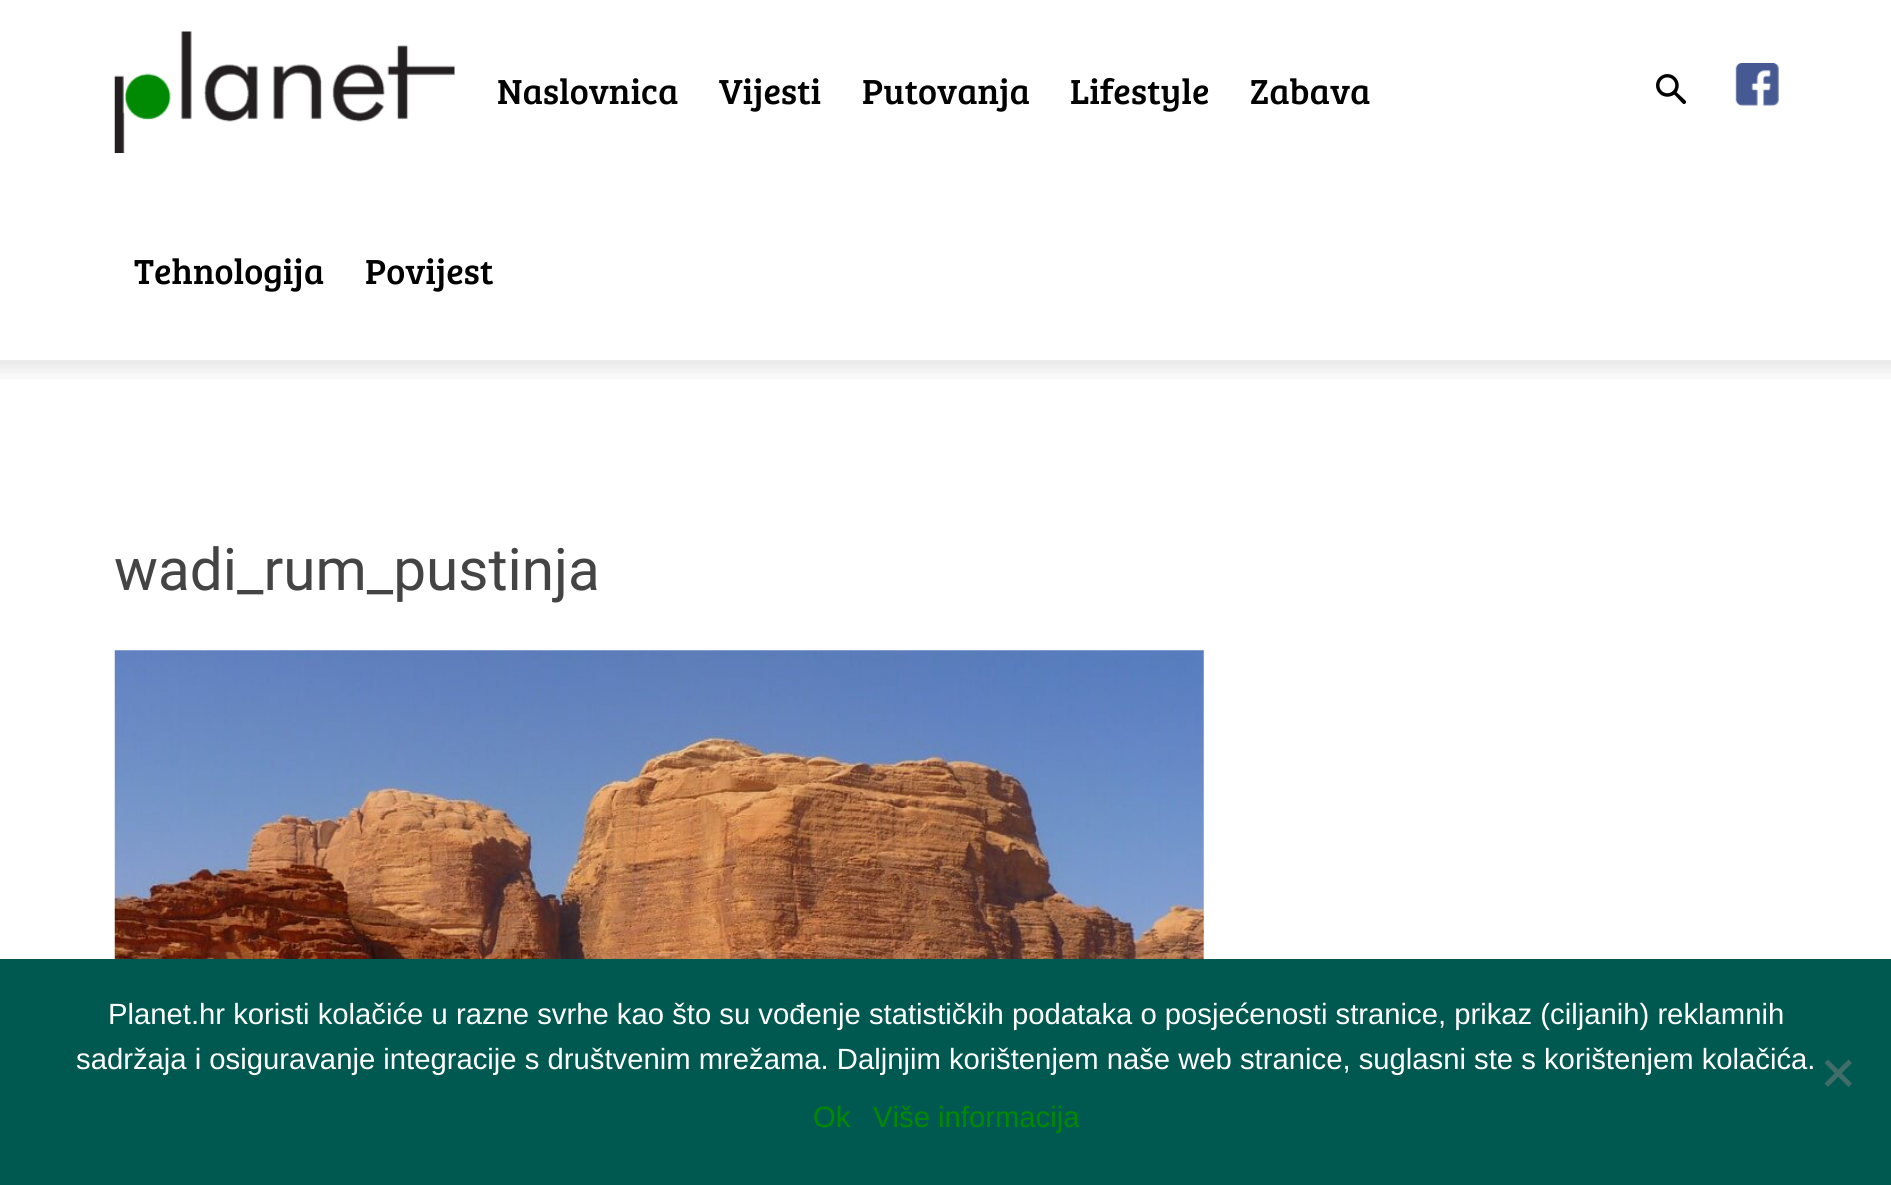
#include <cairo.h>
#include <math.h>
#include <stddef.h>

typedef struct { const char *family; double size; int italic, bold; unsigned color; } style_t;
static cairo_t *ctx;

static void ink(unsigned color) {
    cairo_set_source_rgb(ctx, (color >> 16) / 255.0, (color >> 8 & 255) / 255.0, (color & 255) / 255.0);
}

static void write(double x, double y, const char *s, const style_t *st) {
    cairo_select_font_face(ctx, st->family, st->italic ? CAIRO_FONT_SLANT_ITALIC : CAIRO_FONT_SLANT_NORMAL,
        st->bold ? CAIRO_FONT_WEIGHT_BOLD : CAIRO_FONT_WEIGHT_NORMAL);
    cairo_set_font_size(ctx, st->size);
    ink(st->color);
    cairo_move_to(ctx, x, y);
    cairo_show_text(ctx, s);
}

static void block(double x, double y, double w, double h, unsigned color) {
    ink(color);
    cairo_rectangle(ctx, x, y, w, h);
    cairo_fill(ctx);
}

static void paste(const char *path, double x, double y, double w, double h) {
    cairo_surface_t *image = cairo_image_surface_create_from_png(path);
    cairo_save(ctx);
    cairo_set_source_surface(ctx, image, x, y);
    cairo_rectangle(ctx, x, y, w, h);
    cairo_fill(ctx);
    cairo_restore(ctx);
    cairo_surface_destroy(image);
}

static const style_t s1 = {"Bree Serif", 36, 0, 0, 0x000000};
static const style_t s2 = {"Roboto", 58.5, 0, 0, 0x444444};
static const style_t s3 = {"Liberation Sans", 29.25, 0, 0, 0xffffff};
static const style_t s4 = {"Liberation Sans", 29.25, 0, 0, 0x008902};

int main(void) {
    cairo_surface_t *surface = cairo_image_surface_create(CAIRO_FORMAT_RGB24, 1891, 1185);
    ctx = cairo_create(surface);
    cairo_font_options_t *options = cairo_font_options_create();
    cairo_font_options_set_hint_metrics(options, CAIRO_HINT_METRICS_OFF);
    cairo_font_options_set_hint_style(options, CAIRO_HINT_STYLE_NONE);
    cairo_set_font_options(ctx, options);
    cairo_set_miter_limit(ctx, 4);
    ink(0xffffff);
    cairo_paint(ctx);
    paste("pic1.png", 114, 31, 341, 122);
    write(497, 104, "Naslovnica", &s1);
    write(719, 104, "Vijesti", &s1);
    write(862, 104, "Putovanja", &s1);
    write(1070, 104, "Lifestyle", &s1);
    write(1250, 104, "Zabava", &s1);
    write(134, 284, "Tehnologija", &s1);
    write(365, 284, "Povijest", &s1);
    paste("pic2.png", 1656, 74, 31, 30);
    paste("pic3.png", 1735, 63, 44, 43);
    paste("pic4.png", 0, 360, 1891, 19);
    write(114, 590, "wadi_rum_pustinja", &s2);
    paste("pic5.png", 114, 650, 1090, 309);
    block(0, 959, 1891, 226, 0x005950);
    write(108, 1024, "Planet.hr koristi kolačiće u razne svrhe kao što su vođenje statističkih podataka o posjećenosti stranice, prikaz (ciljanih) reklamnih", &s3);
    write(76, 1069, "sadržaja i osiguravanje integracije s društvenim mrežama. Daljnjim korištenjem naše web stranice, suglasni ste s korištenjem kolačića.", &s3);
    ink(0x406d68);
    cairo_new_path(ctx);
    cairo_move_to(ctx, 1848.5, 1059.5);
    cairo_line_to(ctx, 1852, 1063);
    cairo_line_to(ctx, 1828, 1087);
    cairo_line_to(ctx, 1824.5, 1083.5);
    cairo_close_path(ctx);
    cairo_fill(ctx);
    cairo_new_path(ctx);
    cairo_move_to(ctx, 1824.5, 1063);
    cairo_line_to(ctx, 1828, 1059.5);
    cairo_line_to(ctx, 1852, 1083.5);
    cairo_line_to(ctx, 1848.5, 1087);
    cairo_close_path(ctx);
    cairo_fill(ctx);
    write(813, 1127, "Ok", &s4);
    write(873, 1127, "Više informacija", &s4);
    cairo_surface_write_to_png(surface, "screenshot.png");
    cairo_font_options_destroy(options);
    cairo_destroy(ctx);
    cairo_surface_destroy(surface);
    return 0;
}
